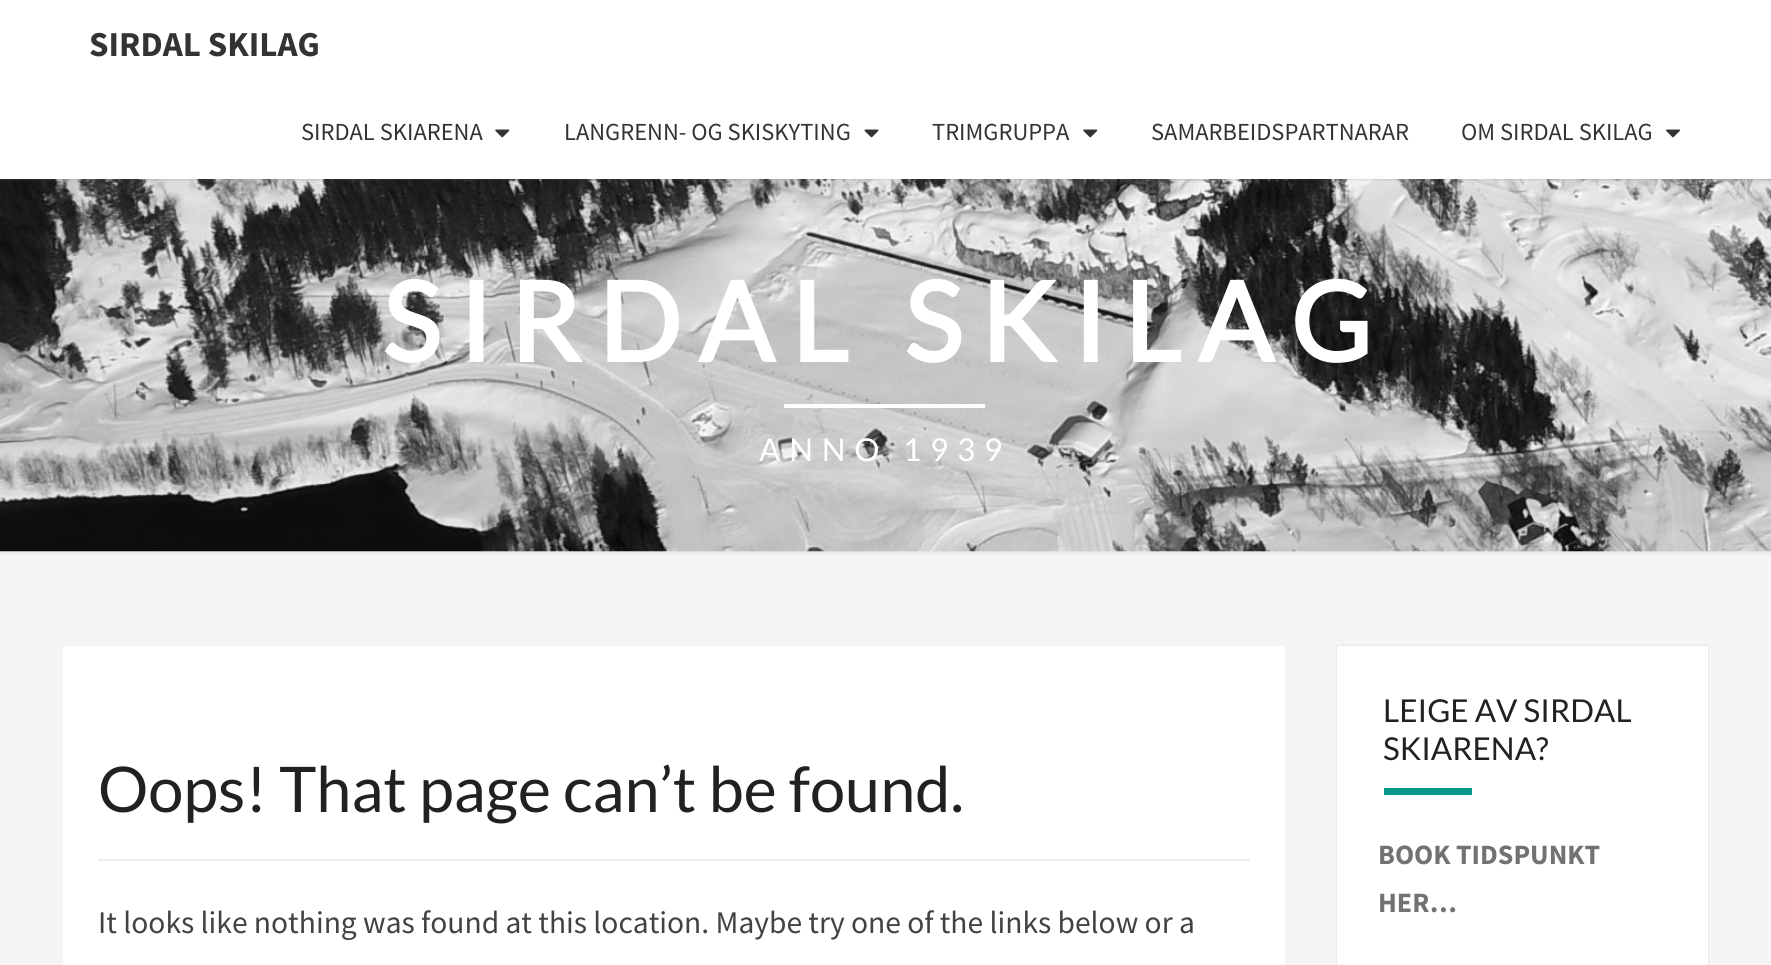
#include <cairo.h>
#include <math.h>
#include <stddef.h>

typedef struct { const char *family; double size; int italic, bold; unsigned color; } style_t;
static cairo_t *ctx;

static void ink(unsigned color) {
    cairo_set_source_rgb(ctx, (color >> 16) / 255.0, (color >> 8 & 255) / 255.0, (color & 255) / 255.0);
}

static void write(double x, double y, const char *s, const style_t *st) {
    cairo_select_font_face(ctx, st->family, st->italic ? CAIRO_FONT_SLANT_ITALIC : CAIRO_FONT_SLANT_NORMAL,
        st->bold ? CAIRO_FONT_WEIGHT_BOLD : CAIRO_FONT_WEIGHT_NORMAL);
    cairo_set_font_size(ctx, st->size);
    ink(st->color);
    cairo_move_to(ctx, x, y);
    cairo_show_text(ctx, s);
}

static void write_spaced(double x, double y, const char *s, double letter, double word) {
    cairo_move_to(ctx, x, y);
    while (*s) {
        char ch[5] = {0};
        int n = 0;
        do ch[n++] = *s++; while ((*s & 0xC0) == 0x80);
        cairo_show_text(ctx, ch);
        cairo_rel_move_to(ctx, letter + word * (*ch == ' '), 0);
    }
}

static void block(double x, double y, double w, double h, unsigned color) {
    ink(color);
    cairo_rectangle(ctx, x, y, w, h);
    cairo_fill(ctx);
}

static void round_path(double x, double y, double w, double h, double r) {
    cairo_new_sub_path(ctx);
    cairo_arc(ctx, x + w - r, y + h - r, r, 0, M_PI / 2);
    cairo_arc(ctx, x + r, y + h - r, r, M_PI / 2, M_PI);
    cairo_arc(ctx, x + r, y + r, r, M_PI, 1.5 * M_PI);
    cairo_arc(ctx, x + w - r, y + r, r, 1.5 * M_PI, 2 * M_PI);
    cairo_close_path(ctx);
}

static void blur_box(double x, double y, double w, double h, double r, double blur, double alpha) {
    cairo_push_group_with_content(ctx, CAIRO_CONTENT_ALPHA);
    cairo_set_operator(ctx, CAIRO_OPERATOR_SOURCE);
    for (int i = 15; i >= -15 && fmin(w, h) + blur * i / 3 > 0; i -= 2) {
        double e = blur * i / 6;
        cairo_set_source_rgba(ctx, 0, 0, 0, alpha * erfc((i - 1) / 8.5) / 2);
        round_path(x - e, y - e, w + 2 * e, h + 2 * e, fmax(0, fmin(r + e + blur * .6, fmin(w, h) / 2 + e)));
        cairo_fill(ctx);
    }
    cairo_pattern_t *soft = cairo_pop_group(ctx);
    cairo_mask(ctx, soft);
    cairo_pattern_destroy(soft);
}

static void paste(const char *path, double x, double y, double w, double h) {
    cairo_surface_t *image = cairo_image_surface_create_from_png(path);
    cairo_save(ctx);
    cairo_set_source_surface(ctx, image, x, y);
    cairo_rectangle(ctx, x, y, w, h);
    cairo_fill(ctx);
    cairo_restore(ctx);
    cairo_surface_destroy(image);
}

static const style_t s1 = {"Source Sans Pro", 35, 0, 1, 0x333333};
static const style_t s2 = {"Source Sans Pro", 24.5, 0, 0, 0x333333};
static const style_t s3 = {"Lato", 63, 0, 0, 0x212121};
static const style_t s4 = {"Source Sans Pro", 31.5, 0, 0, 0x424242};
static const style_t s5 = {"Lato", 31.5, 0, 0, 0x212121};
static const style_t s6 = {"Source Sans Pro", 28, 0, 1, 0x727272};

int main(void) {
    cairo_surface_t *surface = cairo_image_surface_create(CAIRO_FORMAT_RGB24, 1771, 965);
    ctx = cairo_create(surface);
    cairo_font_options_t *options = cairo_font_options_create();
    cairo_font_options_set_hint_metrics(options, CAIRO_HINT_METRICS_OFF);
    cairo_font_options_set_hint_style(options, CAIRO_HINT_STYLE_NONE);
    cairo_set_font_options(ctx, options);
    cairo_set_miter_limit(ctx, 4);
    ink(0xf5f5f5);
    cairo_paint(ctx);
    ink(0xb6b6b6);
    blur_box(-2, 177, 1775, 376, 0, 2, 0.3);
    paste("pic4.png", 0, 179, 1771, 373);
    ink(0x646464);
    blur_box(0, 2, 1771, 178, 0, 1, 0.2);
    block(0, 0, 1771, 179, 0xffffff);
    write(89, 56, "SIRDAL SKILAG", &s1);
    write(301, 140, "SIRDAL SKIARENA", &s2);
    paste("pic1.png", 495, 129, 15, 9);
    write(564, 140, "LANGRENN- OG SKISKYTING", &s2);
    paste("pic2.png", 864, 129, 15, 9);
    write(932, 140, "TRIMGRUPPA", &s2);
    paste("pic1.png", 1083, 129, 15, 9);
    write(1151, 140, "SAMARBEIDSPARTNARAR", &s2);
    write(1461, 140, "OM SIRDAL SKILAG", &s2);
    paste("pic3.png", 1666, 129, 14, 9);
    cairo_select_font_face(ctx, "Lato", CAIRO_FONT_SLANT_NORMAL, CAIRO_FONT_WEIGHT_BOLD);
    cairo_set_font_size(ctx, 110.25);
    ink(0xffffff);
    write_spaced(382, 362, "SIRDAL SKILAG", 17.5, 0);
    block(784, 404, 201, 4, 0xffffff);
    cairo_select_font_face(ctx, "Lato", CAIRO_FONT_SLANT_NORMAL, CAIRO_FONT_WEIGHT_NORMAL);
    cairo_set_font_size(ctx, 31.5);
    write_spaced(759, 461, "ANNO 1939", 8.75, 0);
    block(63, 646, 1222, 319, 0xffffff);
    block(98, 859, 1152, 2, 0xeeeeee);
    write(98, 812, "Oops! That page can’t be found.", &s3);
    write(98, 933, "It looks like nothing was found at this location. Maybe try one of the links below or a", &s4);
    ink(0x000000);
    blur_box(1337, 646, 371, 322, 0, 1, 0.15);
    block(1337, 646, 371, 319, 0xffffff);
    write(1383, 722, "LEIGE AV SIRDAL", &s5);
    write(1383, 760, "SKIARENA?", &s5);
    block(1384, 788, 88, 7, 0x009688);
    write(1378, 864, "BOOK TIDSPUNKT", &s6);
    write(1378, 912, "HER…", &s6);
    cairo_surface_write_to_png(surface, "screenshot.png");
    cairo_font_options_destroy(options);
    cairo_destroy(ctx);
    cairo_surface_destroy(surface);
    return 0;
}
